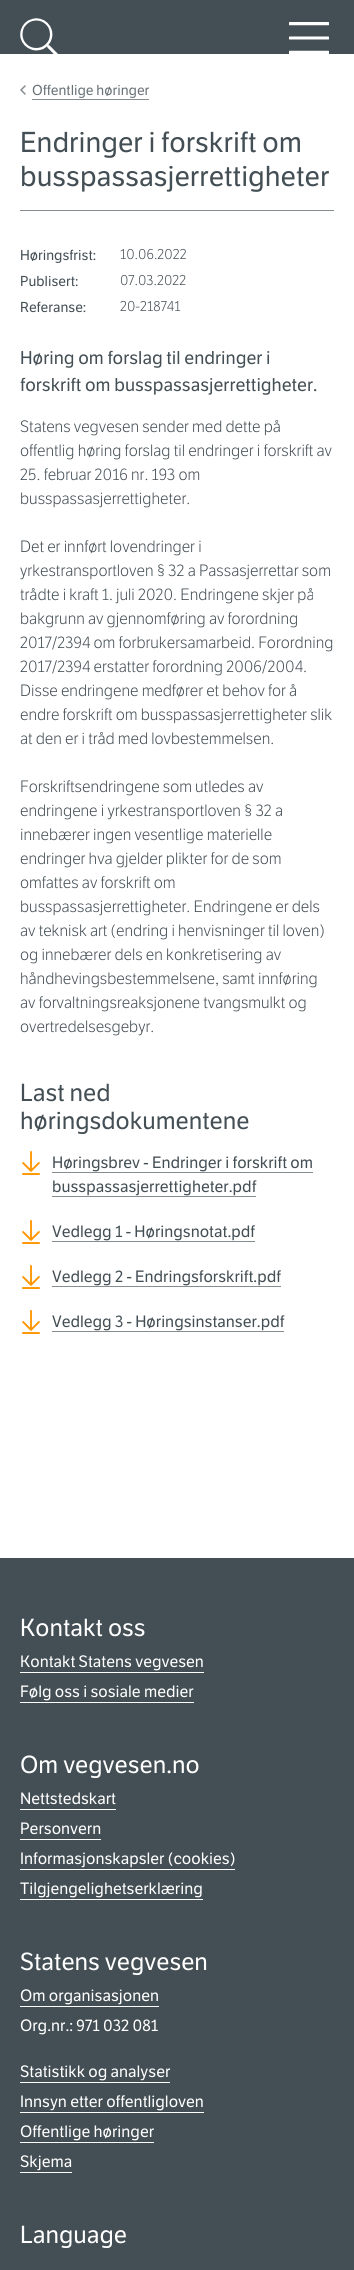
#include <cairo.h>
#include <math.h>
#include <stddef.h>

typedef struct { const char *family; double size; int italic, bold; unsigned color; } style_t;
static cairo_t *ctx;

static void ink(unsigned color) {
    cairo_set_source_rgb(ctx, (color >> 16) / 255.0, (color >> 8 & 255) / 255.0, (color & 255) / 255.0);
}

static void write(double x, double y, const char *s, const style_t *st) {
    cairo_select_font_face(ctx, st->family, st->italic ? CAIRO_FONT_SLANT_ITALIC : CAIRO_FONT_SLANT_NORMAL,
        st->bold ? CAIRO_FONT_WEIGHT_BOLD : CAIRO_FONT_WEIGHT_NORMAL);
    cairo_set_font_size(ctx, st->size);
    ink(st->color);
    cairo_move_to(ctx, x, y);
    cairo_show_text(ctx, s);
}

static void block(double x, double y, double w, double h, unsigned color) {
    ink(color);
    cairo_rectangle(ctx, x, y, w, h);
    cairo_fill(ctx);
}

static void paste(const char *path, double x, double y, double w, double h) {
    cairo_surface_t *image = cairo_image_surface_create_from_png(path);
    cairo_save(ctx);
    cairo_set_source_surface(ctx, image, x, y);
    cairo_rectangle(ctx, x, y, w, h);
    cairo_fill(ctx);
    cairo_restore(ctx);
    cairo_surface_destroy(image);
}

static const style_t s1 = {"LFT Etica", 14, 0, 0, 0x697277};
static const style_t s2 = {"LFT Etica", 28, 0, 0, 0x444f55};
static const style_t s3 = {"LFT Etica", 14, 0, 0, 0x444f55};
static const style_t s4 = {"LFT Etica Light", 14, 0, 0, 0x444f55};
static const style_t s5 = {"LFT Etica", 18, 0, 0, 0x444f55};
static const style_t s6 = {"LFT Etica Light", 16, 0, 0, 0x444f55};
static const style_t s7 = {"LFT Etica", 24, 0, 0, 0x444f55};
static const style_t s8 = {"LFT Etica", 16, 0, 0, 0x444f55};
static const style_t s9 = {"LFT Etica", 24, 0, 0, 0xffffff};
static const style_t s10 = {"LFT Etica", 16, 0, 0, 0xffffff};

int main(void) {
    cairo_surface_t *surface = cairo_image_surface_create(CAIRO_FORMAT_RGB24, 354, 2270);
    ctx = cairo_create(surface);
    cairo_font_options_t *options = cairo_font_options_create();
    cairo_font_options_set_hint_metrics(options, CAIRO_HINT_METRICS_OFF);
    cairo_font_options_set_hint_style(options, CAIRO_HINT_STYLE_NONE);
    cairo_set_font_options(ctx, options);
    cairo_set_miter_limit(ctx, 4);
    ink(0xffffff);
    cairo_paint(ctx);
    block(0, 0, 354, 54, 0x444f55);
    paste("pic1.png", 20, 18, 38, 36);
    paste("pic2.png", 289, 22, 40, 32);
    cairo_new_path(ctx);
    cairo_move_to(ctx, 25, 94);
    cairo_line_to(ctx, 21, 90);
    cairo_line_to(ctx, 25, 86);
    ink(0x858d90);
    cairo_set_line_width(ctx, 1.5);
    cairo_set_line_cap(ctx, CAIRO_LINE_CAP_ROUND);
    cairo_set_line_join(ctx, CAIRO_LINE_JOIN_ROUND);
    cairo_stroke(ctx);
    write(32, 95, "Offentlige høringer", &s1);
    block(32, 99, 117, 1, 0x858d90);
    write(20, 152, "Endringer i forskrift om", &s2);
    write(20, 186, "busspassasjerrettigheter", &s2);
    block(20, 210, 314, 1, 0x858d90);
    write(20, 260, "Høringsfrist:", &s3);
    write(120, 259, "10.06.2022", &s4);
    write(20, 286, "Publisert:", &s3);
    write(120, 285, "07.03.2022", &s4);
    write(20, 312, "Referanse:", &s3);
    write(120, 311, "20-218741", &s4);
    write(20, 364, "Høring om forslag til endringer i", &s5);
    write(20, 391, "forskrift om busspassasjerrettigheter.", &s5);
    write(20, 432, "Statens vegvesen sender med dette på", &s6);
    write(20, 456, "offentlig høring forslag til endringer i forskrift av", &s6);
    write(20, 480, "25. februar 2016 nr. 193 om", &s6);
    write(20, 504, "busspassasjerrettigheter.", &s6);
    write(20, 552, "Det er innført lovendringer i", &s6);
    write(20, 576, "yrkestransportloven § 32 a Passasjerrettar som", &s6);
    write(20, 600, "trådte i kraft 1. juli 2020. Endringene skjer på", &s6);
    write(20, 624, "bakgrunn av gjennomføring av forordning", &s6);
    write(20, 648, "2017/2394 om forbrukersamarbeid. Forordning", &s6);
    write(20, 672, "2017/2394 erstatter forordning 2006/2004.", &s6);
    write(20, 696, "Disse endringene medfører et behov for å", &s6);
    write(20, 720, "endre forskrift om busspassasjerrettigheter slik", &s6);
    write(20, 744, "at den er i tråd med lovbestemmelsen.", &s6);
    write(20, 792, "Forskriftsendringene som utledes av", &s6);
    write(20, 816, "endringene i yrkestransportloven § 32 a", &s6);
    write(20, 840, "innebærer ingen vesentlige materielle", &s6);
    write(20, 864, "endringer hva gjelder plikter for de som", &s6);
    write(20, 888, "omfattes av forskrift om", &s6);
    write(20, 912, "busspassasjerrettigheter. Endringene er dels", &s6);
    write(20, 936, "av teknisk art (endring i henvisninger til loven)", &s6);
    write(20, 960, "og innebærer dels en konkretisering av", &s6);
    write(20, 984, "håndhevingsbestemmelsene, samt innføring", &s6);
    write(20, 1008, "av forvaltningsreaksjonene tvangsmulkt og", &s6);
    write(20, 1032, "overtredelsesgebyr.", &s6);
    write(20, 1101, "Last ned", &s7);
    write(20, 1129, "høringsdokumentene", &s7);
    paste("pic3.png", 22, 1151, 18, 24);
    write(52, 1168, "Høringsbrev - Endringer i forskrift om", &s8);
    block(52, 1172, 261, 1, 0x858d90);
    write(52, 1192, "busspassasjerrettigheter.pdf", &s8);
    block(52, 1196, 204, 1, 0x858d90);
    paste("pic3.png", 22, 1220, 18, 24);
    write(52, 1237, "Vedlegg 1 - Høringsnotat.pdf", &s8);
    block(52, 1241, 203, 1, 0x858d90);
    paste("pic3.png", 22, 1265, 18, 24);
    write(52, 1282, "Vedlegg 2 - Endringsforskrift.pdf", &s8);
    block(52, 1286, 229, 1, 0x858d90);
    paste("pic3.png", 22, 1310, 18, 24);
    write(52, 1327, "Vedlegg 3 - Høringsinstanser.pdf", &s8);
    block(52, 1331, 232, 1, 0x858d90);
    block(0, 1558, 354, 712, 0x444f55);
    write(20, 1636, "Kontakt oss", &s9);
    write(20, 1667, "Kontakt Statens vegvesen", &s10);
    block(20, 1672, 184, 1, 0xffffff);
    write(20, 1697, "Følg oss i sosiale medier", &s10);
    block(20, 1702, 174, 1, 0xffffff);
    write(20, 1773, "Om vegvesen.no", &s9);
    write(20, 1804, "Nettstedskart", &s10);
    block(20, 1809, 96, 1, 0xffffff);
    write(20, 1834, "Personvern", &s10);
    block(20, 1839, 81, 1, 0xffffff);
    write(20, 1864, "Informasjonskapsler (cookies)", &s10);
    block(20, 1869, 215, 1, 0xffffff);
    write(20, 1894, "Tilgjengelighetserklæring", &s10);
    block(20, 1899, 183, 1, 0xffffff);
    write(20, 1970, "Statens vegvesen", &s9);
    write(20, 2001, "Om organisasjonen", &s10);
    block(20, 2006, 139, 1, 0xffffff);
    write(20, 2031, "Org.nr.: 971 032 081", &s10);
    write(20, 2077, "Statistikk og analyser", &s10);
    block(20, 2082, 150, 1, 0xffffff);
    write(20, 2107, "Innsyn etter offentligloven", &s10);
    block(20, 2112, 184, 1, 0xffffff);
    write(20, 2137, "Offentlige høringer", &s10);
    block(20, 2142, 134, 1, 0xffffff);
    write(20, 2167, "Skjema", &s10);
    block(20, 2172, 52, 1, 0xffffff);
    write(20, 2243, "Language", &s9);
    cairo_surface_write_to_png(surface, "screenshot.png");
    cairo_font_options_destroy(options);
    cairo_destroy(ctx);
    cairo_surface_destroy(surface);
    return 0;
}
